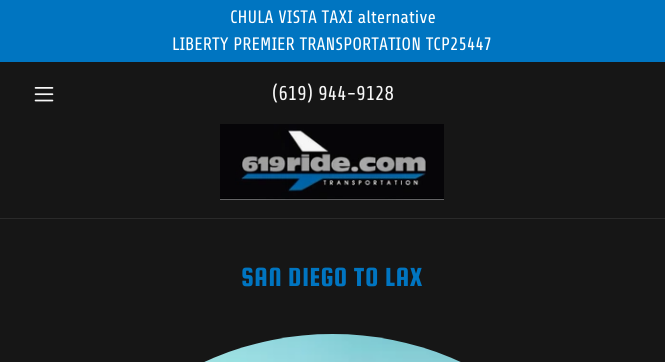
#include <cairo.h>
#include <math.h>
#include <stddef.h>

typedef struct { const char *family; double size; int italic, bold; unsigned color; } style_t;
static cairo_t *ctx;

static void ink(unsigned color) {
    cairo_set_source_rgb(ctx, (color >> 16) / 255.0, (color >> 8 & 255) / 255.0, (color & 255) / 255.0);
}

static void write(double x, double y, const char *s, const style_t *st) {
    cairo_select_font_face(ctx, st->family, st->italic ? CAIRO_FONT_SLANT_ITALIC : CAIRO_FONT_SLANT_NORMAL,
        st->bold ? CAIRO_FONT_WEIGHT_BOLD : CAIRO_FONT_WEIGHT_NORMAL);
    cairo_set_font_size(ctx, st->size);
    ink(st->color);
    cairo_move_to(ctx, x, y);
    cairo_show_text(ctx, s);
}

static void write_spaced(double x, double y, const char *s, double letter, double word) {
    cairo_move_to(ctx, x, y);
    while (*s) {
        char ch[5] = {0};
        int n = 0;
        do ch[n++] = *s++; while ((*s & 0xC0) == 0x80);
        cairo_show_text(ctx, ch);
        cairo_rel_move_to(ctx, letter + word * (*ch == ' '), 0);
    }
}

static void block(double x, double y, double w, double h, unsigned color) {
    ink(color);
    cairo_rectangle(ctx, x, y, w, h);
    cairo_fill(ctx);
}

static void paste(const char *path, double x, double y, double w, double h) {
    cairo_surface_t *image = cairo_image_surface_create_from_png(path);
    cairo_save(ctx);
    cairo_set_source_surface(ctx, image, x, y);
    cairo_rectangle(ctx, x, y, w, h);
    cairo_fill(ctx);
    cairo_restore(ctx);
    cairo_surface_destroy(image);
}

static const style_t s1 = {"Share", 18, 0, 0, 0xffffff};
static const style_t s2 = {"Share", 20, 0, 0, 0xf7f7f7};

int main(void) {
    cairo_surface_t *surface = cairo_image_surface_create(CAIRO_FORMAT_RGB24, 665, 362);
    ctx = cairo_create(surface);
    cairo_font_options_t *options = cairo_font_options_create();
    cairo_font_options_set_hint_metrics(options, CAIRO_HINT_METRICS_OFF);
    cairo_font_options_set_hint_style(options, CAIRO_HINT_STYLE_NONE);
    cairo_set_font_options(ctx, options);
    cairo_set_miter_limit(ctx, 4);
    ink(0x161616);
    cairo_paint(ctx);
    block(0, 0, 665, 62, 0x0075c1);
    write(230, 23, "CHULA VISTA TAXI alternative", &s1);
    write(172, 50, "LIBERTY PREMIER TRANSPORTATION TCP25447", &s1);
    paste("pic1.png", 34, 87, 20, 15);
    write(272, 100, "(619) 944-9128", &s2);
    paste("pic2.png", 220, 124, 224, 76);
    block(0, 218, 665, 1, 0x2a2a2a);
    cairo_select_font_face(ctx, "Squada One", CAIRO_FONT_SLANT_NORMAL, CAIRO_FONT_WEIGHT_NORMAL);
    cairo_set_font_size(ctx, 28);
    ink(0x0075c1);
    write_spaced(241, 286, "SAN DIEGO TO LAX", 0.5, 0);
    paste("pic3.png", 204, 334, 257, 28);
    cairo_surface_write_to_png(surface, "screenshot.png");
    cairo_font_options_destroy(options);
    cairo_destroy(ctx);
    cairo_surface_destroy(surface);
    return 0;
}
